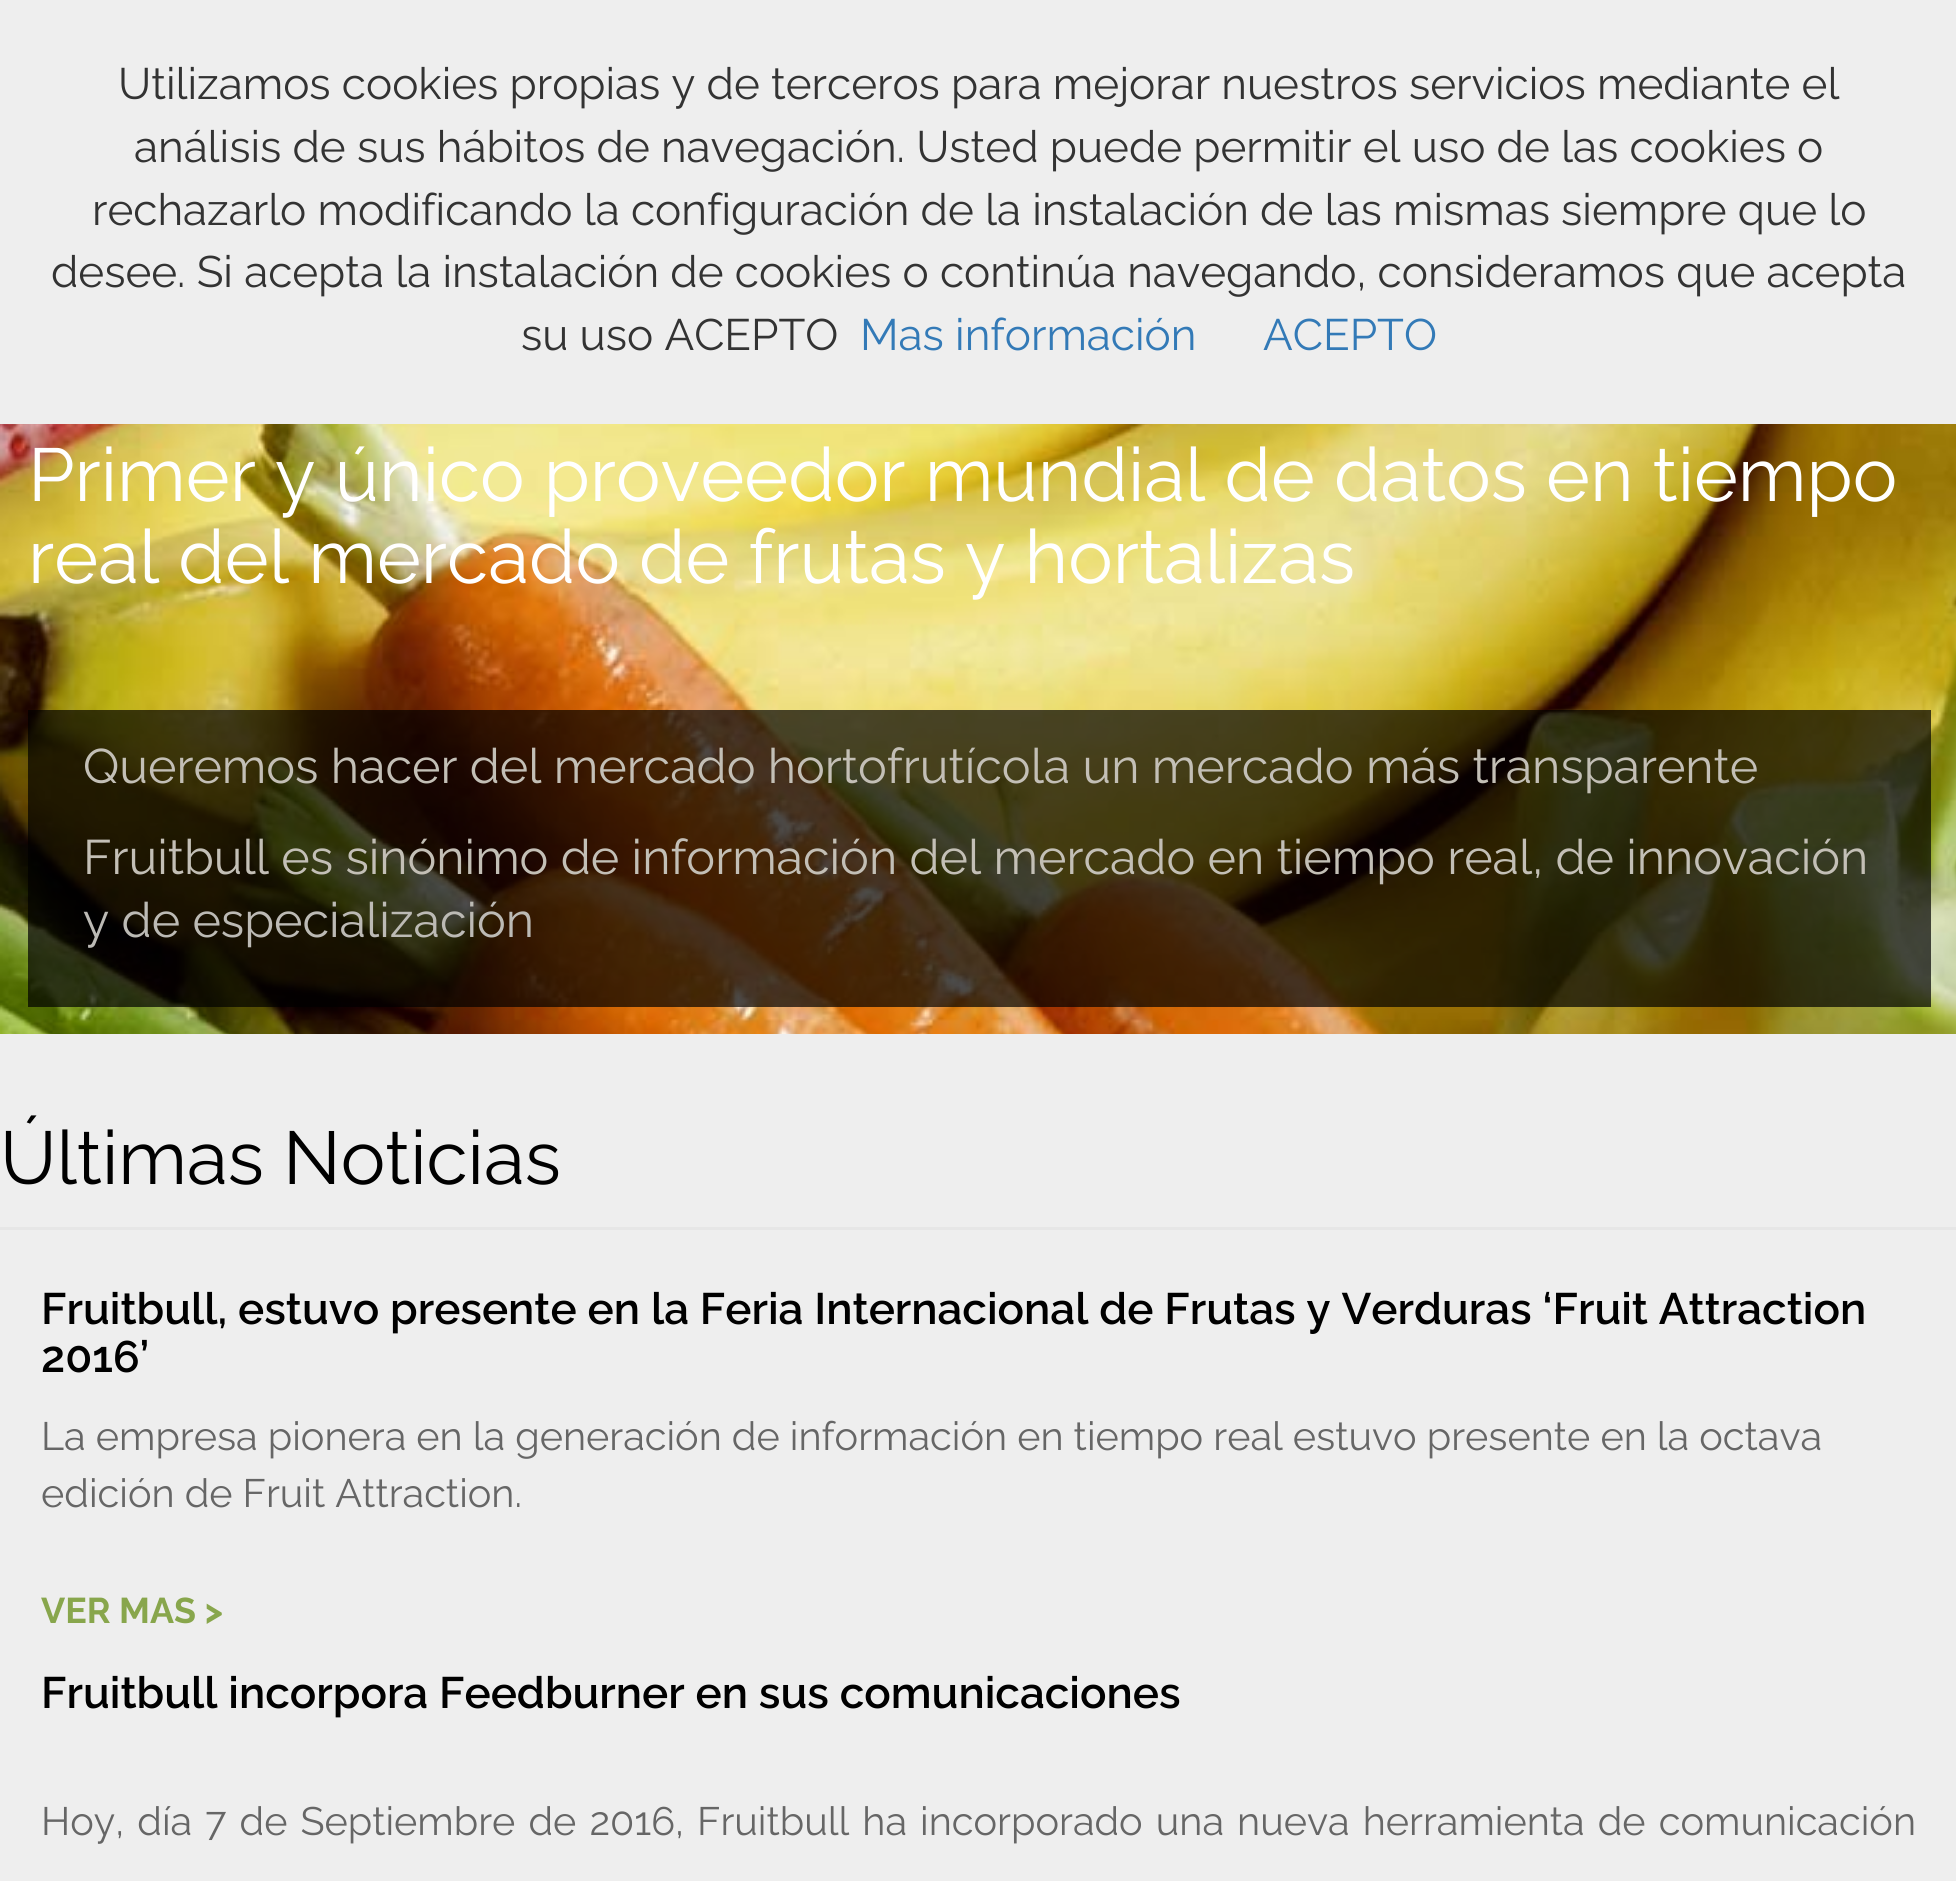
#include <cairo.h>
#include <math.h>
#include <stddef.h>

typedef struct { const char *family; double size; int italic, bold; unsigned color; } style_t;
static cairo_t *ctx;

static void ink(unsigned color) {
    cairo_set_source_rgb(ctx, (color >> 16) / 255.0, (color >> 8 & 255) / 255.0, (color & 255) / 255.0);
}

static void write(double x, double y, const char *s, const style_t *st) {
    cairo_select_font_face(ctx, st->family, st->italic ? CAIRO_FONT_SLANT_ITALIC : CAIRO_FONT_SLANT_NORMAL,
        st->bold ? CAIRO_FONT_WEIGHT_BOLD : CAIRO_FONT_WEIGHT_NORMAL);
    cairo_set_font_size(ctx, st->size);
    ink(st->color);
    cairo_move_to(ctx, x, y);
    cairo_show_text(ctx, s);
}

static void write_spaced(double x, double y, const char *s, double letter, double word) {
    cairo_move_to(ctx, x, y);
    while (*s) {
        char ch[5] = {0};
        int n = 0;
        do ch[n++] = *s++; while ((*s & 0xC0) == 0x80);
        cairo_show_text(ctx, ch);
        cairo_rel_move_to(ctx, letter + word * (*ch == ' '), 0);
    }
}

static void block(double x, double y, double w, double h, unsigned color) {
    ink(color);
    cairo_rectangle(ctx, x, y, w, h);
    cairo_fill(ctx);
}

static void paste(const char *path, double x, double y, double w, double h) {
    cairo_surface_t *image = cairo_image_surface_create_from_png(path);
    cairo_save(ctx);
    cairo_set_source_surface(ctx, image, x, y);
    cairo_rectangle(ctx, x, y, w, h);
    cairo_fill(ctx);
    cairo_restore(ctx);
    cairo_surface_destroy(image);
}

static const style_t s1 = {"Raleway", 44, 0, 0, 0x333333};
static const style_t s2 = {"Raleway", 44, 0, 0, 0x337ab7};
static const style_t s3 = {"Raleway", 74.8, 0, 0, 0xffffff};
static const style_t s4 = {"Raleway", 48.4, 0, 0, 0xc3bfb6};
static const style_t s5 = {"Raleway", 48.4, 0, 0, 0xbcbab5};
static const style_t s6 = {"Raleway", 74.8, 0, 0, 0x000000};
static const style_t s7 = {"Raleway SemiBold", 44, 0, 0, 0x000000};
static const style_t s8 = {"Raleway", 39.6, 0, 0, 0x666666};
static const style_t s9 = {"Raleway", 35.75, 0, 1, 0x88a64c};

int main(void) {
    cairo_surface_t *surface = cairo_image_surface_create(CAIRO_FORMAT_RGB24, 1956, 1881);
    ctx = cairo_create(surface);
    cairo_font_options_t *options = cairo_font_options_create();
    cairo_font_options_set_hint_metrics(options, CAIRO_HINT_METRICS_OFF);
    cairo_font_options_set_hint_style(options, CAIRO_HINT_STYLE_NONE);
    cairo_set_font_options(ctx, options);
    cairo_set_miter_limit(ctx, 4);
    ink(0xffffff);
    cairo_paint(ctx);
    block(0, 0, 1956, 424, 0xeeeeee);
    write(118, 99, "Utilizamos cookies propias y de terceros para mejorar nuestros servicios mediante el", &s1);
    write(134, 162, "análisis de sus hábitos de navegación. Usted puede permitir el uso de las cookies o", &s1);
    write(92, 225, "rechazarlo modificando la configuración de la instalación de las mismas siempre que lo", &s1);
    write(51, 287, "desee. Si acepta la instalación de cookies o continúa navegando, consideramos que acepta", &s1);
    write(521, 350, "su uso ACEPTO", &s1);
    write(860, 350, "Mas información", &s2);
    write(1263, 350, "ACEPTO", &s2);
    paste("pic1.png", 0, 424, 1956, 610);
    write(28, 501, "Primer y único proveedor mundial de datos en tiempo", &s3);
    write(28, 583, "real del mercado de frutas y hortalizas", &s3);
    cairo_set_source_rgba(ctx, 0, 0, 0, 0.7);
    cairo_rectangle(ctx, 28, 710, 1903, 297);
    cairo_fill(ctx);
    write(83, 783, "Queremos hacer del mercado hortofrutícola un mercado más transparente", &s4);
    write(83, 874, "Fruitbull es sinónimo de información del mercado en tiempo real, de innovación", &s4);
    write(83, 937, "y de especialización", &s5);
    block(0, 1034, 1956, 847, 0xeeeeee);
    block(0, 1227, 1956, 3, 0xe6e6e6);
    write(0, 1184, "Últimas Noticias", &s6);
    write(41, 1324, "Fruitbull, estuvo presente en la Feria Internacional de Frutas y Verduras ‘Fruit Attraction", &s7);
    write(41, 1372, "2016’", &s7);
    write(41, 1450, "La empresa pionera en la generación de información en tiempo real estuvo presente en la octava", &s8);
    write(41, 1507, "edición de Fruit Attraction.", &s8);
    write(41, 1623, "VER MAS >", &s9);
    write(41, 1708, "Fruitbull incorpora Feedburner en sus comunicaciones", &s7);
    cairo_select_font_face(ctx, "Raleway", CAIRO_FONT_SLANT_NORMAL, CAIRO_FONT_WEIGHT_NORMAL);
    cairo_set_font_size(ctx, 39.6);
    ink(0x666666);
    write_spaced(41, 1835, "Hoy, día 7 de Septiembre de 2016, Fruitbull ha incorporado una nueva herramienta de comunicación", 0, 3);
    cairo_surface_write_to_png(surface, "screenshot.png");
    cairo_font_options_destroy(options);
    cairo_destroy(ctx);
    cairo_surface_destroy(surface);
    return 0;
}
